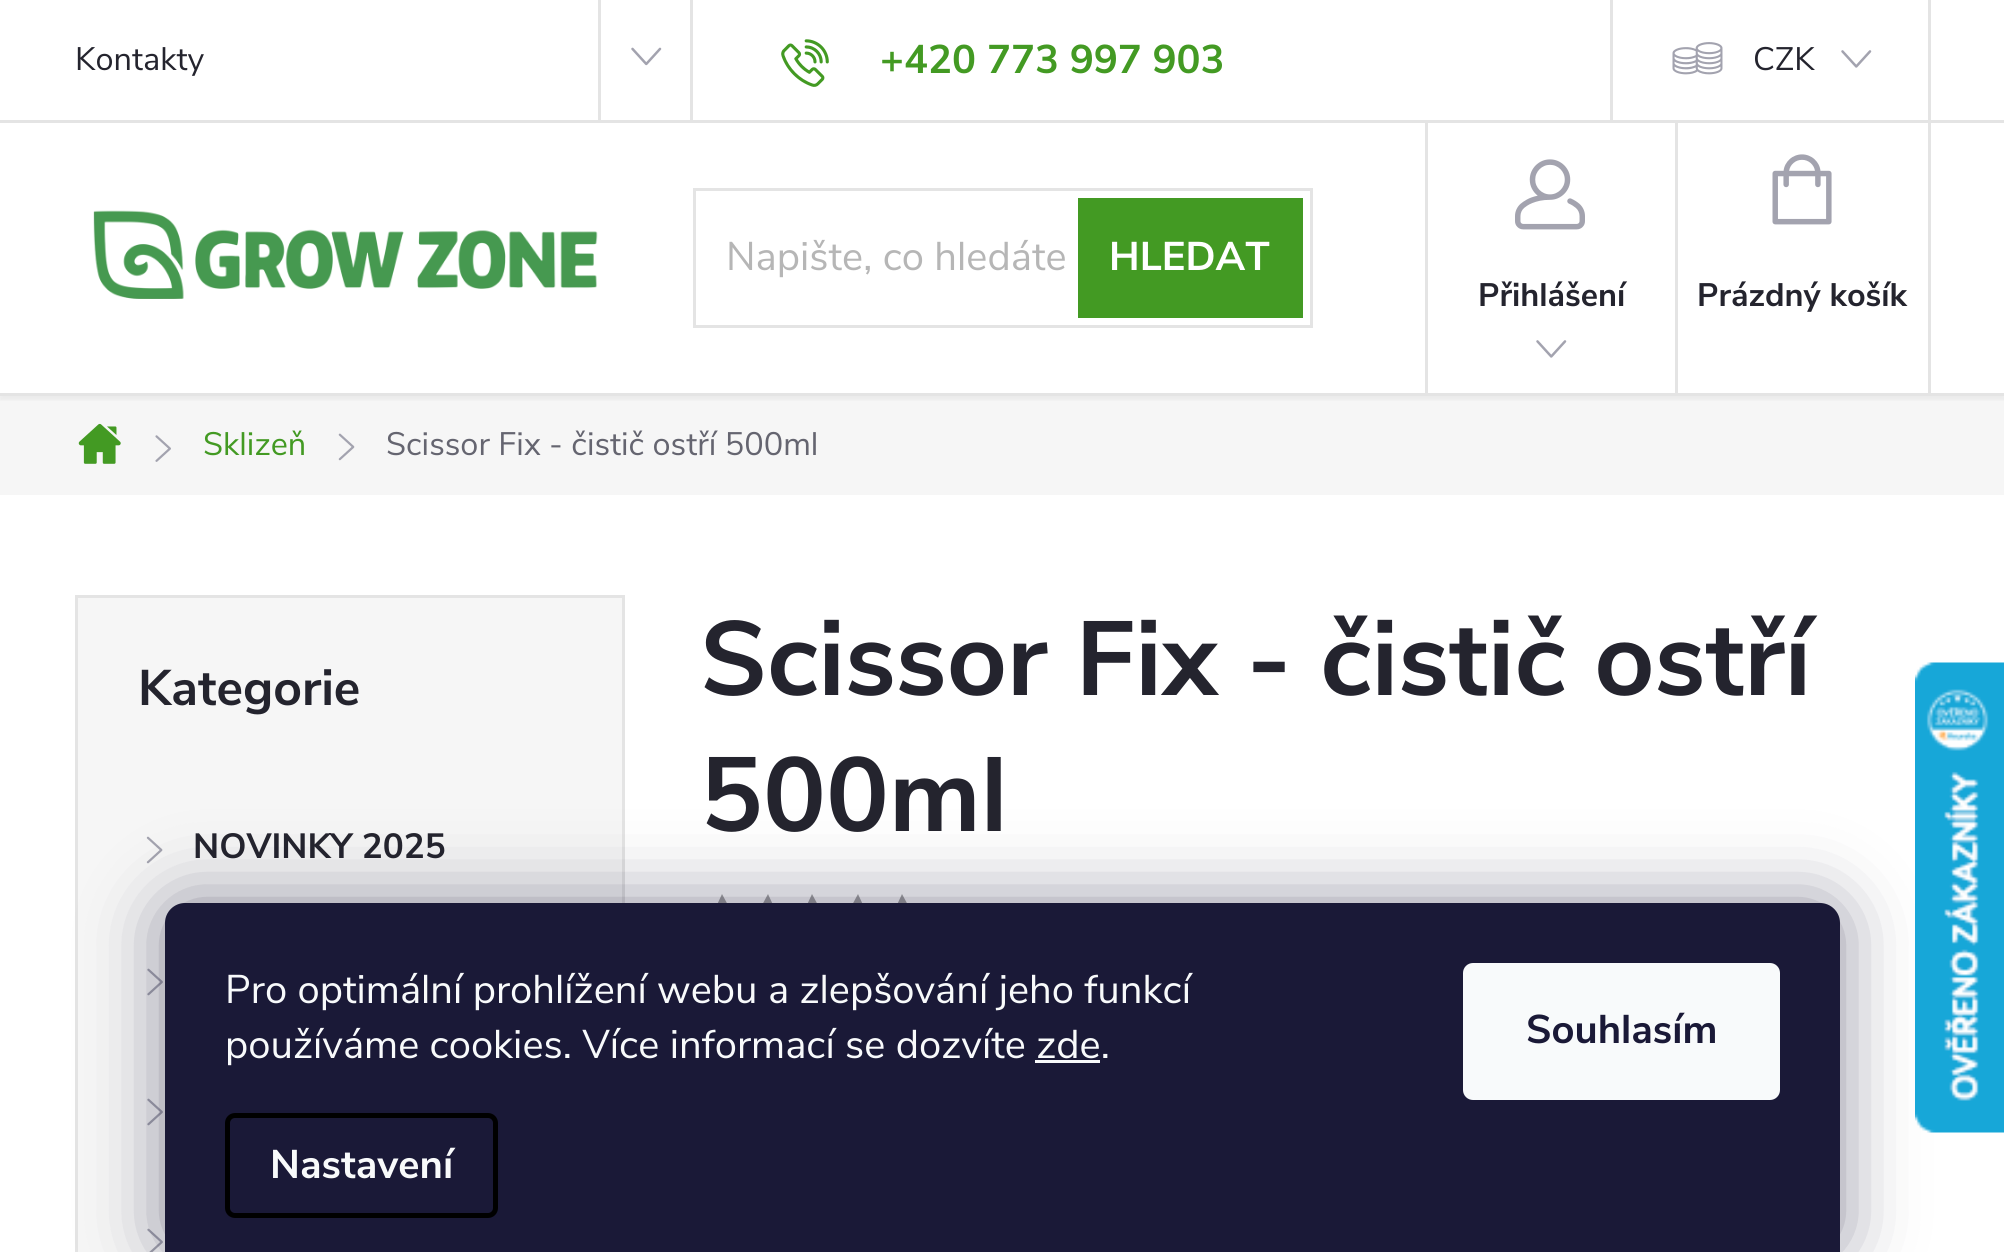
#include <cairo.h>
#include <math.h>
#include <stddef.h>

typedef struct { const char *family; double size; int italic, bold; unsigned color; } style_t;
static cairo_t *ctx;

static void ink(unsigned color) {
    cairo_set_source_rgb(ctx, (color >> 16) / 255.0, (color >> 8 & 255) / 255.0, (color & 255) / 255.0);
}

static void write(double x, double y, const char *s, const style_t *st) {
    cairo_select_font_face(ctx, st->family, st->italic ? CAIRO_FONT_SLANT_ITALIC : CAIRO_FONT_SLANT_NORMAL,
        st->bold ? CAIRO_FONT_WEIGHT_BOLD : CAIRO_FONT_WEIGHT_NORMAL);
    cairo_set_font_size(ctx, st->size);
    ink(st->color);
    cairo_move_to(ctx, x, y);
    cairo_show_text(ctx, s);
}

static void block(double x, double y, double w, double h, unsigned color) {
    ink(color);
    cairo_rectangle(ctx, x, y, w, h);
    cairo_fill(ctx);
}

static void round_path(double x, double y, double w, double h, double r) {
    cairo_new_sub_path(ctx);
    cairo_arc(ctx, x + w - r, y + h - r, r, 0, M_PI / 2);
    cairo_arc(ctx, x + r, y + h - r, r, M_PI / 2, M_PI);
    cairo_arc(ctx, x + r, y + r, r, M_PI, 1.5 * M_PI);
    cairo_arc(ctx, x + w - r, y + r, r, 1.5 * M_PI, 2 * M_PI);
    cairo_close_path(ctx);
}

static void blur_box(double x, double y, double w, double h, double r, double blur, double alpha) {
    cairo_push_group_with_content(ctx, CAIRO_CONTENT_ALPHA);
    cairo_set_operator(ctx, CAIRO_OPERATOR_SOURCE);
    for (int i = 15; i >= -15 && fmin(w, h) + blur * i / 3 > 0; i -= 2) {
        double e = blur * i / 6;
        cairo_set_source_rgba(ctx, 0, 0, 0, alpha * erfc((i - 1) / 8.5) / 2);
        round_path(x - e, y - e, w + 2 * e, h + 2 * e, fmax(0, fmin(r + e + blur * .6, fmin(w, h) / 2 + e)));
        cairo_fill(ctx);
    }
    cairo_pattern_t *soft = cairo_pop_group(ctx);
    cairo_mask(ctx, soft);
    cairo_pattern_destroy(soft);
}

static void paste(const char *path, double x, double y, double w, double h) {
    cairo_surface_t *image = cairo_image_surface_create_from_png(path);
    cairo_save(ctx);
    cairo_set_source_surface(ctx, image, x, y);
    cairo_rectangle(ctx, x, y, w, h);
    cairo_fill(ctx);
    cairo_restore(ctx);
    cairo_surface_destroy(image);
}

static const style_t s1 = {"Nunito Sans", 32.5, 0, 0, 0x24242e};
static const style_t s2 = {"Nunito Sans", 40, 0, 1, 0x439a23};
static const style_t s3 = {"Nunito Sans", 40, 0, 0, 0xb6b6b6};
static const style_t s4 = {"Nunito Sans", 40, 0, 1, 0xffffff};
static const style_t s5 = {"Nunito Sans", 32.5, 0, 1, 0x24242e};
static const style_t s6 = {"Nunito Sans", 32.5, 0, 0, 0x439a23};
static const style_t s7 = {"Nunito Sans", 32.5, 0, 0, 0x656570};
static const style_t s8 = {"Nunito Sans", 50, 0, 1, 0x24242e};
static const style_t s9 = {"Nunito Sans", 35, 0, 1, 0x24242e};
static const style_t s10 = {"Nunito Sans", 105, 0, 1, 0x24242e};
static const style_t s11 = {"Nunito Sans", 40, 0, 0, 0xf8fafb};
static const style_t s12 = {"Nunito Sans", 40, 0, 1, 0xf8fafb};
static const style_t s13 = {"Nunito Sans", 40, 0, 1, 0x1a1937};

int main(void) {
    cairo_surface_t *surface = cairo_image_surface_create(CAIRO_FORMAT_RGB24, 2004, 1252);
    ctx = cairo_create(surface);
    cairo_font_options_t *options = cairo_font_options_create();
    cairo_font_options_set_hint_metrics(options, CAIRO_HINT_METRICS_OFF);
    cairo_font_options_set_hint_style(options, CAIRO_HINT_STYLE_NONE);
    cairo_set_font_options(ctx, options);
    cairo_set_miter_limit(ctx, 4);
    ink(0xffffff);
    cairo_paint(ctx);
    block(0, 120, 2004, 3, 0xe4e4e4);
    write(75, 70, "Kontakty", &s1);
    block(1928, 0, 3, 120, 0xe4e4e4);
    block(1610, 0, 3, 120, 0xe4e4e4);
    block(0, 396, 2004, 99, 0xf6f6f6);
    cairo_save(ctx);
    cairo_rectangle(ctx, 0, 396, 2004, 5);
    cairo_clip(ctx);
    ink(0x000000);
    blur_box(0, 128, 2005, 272, 0, 2.5, 0.05);
    cairo_restore(ctx);
    block(690, 0, 3, 120, 0xe4e4e4);
    block(598, 0, 3, 120, 0xe4e4e4);
    paste("pic1.png", 631, 47, 31, 19);
    paste("pic2.png", 781, 39, 48, 48);
    write(880, 73, "+420 773 997 903", &s2);
    paste("pic3.png", 1672, 42, 51, 33);
    write(1753, 70, "CZK", &s1);
    paste("pic4.png", 1841, 50, 31, 18);
    block(0, 393, 2004, 3, 0xe4e4e4);
    paste("pic5.png", 93, 210, 505, 89);
    cairo_rectangle(ctx, 694.5, 189.5, 617, 137);
    cairo_set_line_width(ctx, 3);
    cairo_stroke(ctx);
    write(726, 270, "Napište, co hledáte", &s3);
    block(1078, 198, 225, 120, 0x439a23);
    write(1109, 270, "HLEDAT", &s4);
    block(1425, 123, 3, 270, 0xe4e4e4);
    paste("pic6.png", 1515, 159, 70, 71);
    write(1478, 306, "Přihlášení", &s5);
    paste("pic4.png", 1536, 340, 31, 18);
    block(1928, 123, 3, 270, 0xe4e4e4);
    block(1675, 123, 3, 270, 0xe4e4e4);
    paste("pic7.png", 1772, 154, 60, 71);
    write(1697, 306, "Prázdný košík", &s5);
    paste("pic8.png", 78, 423, 43, 41);
    paste("pic9.png", 155, 435, 16, 27);
    write(203, 455, "Sklizeň", &s6);
    paste("pic10.png", 338, 433, 17, 28);
    write(386, 455, "Scissor Fix - čistič ostří 500ml", &s7);
    ink(0xf6f6f6);
    cairo_rectangle(ctx, 76.5, 596.5, 547, 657);
    cairo_fill_preserve(ctx);
    ink(0xe4e4e4);
    cairo_stroke(ctx);
    write(138, 705, "Kategorie", &s8);
    paste("pic11.png", 146, 836, 17, 28);
    write(193, 858, "NOVINKY 2025", &s9);
    paste("pic12.png", 147, 968, 16, 28);
    paste("pic12.png", 147, 1098, 16, 28);
    paste("pic13.png", 147, 1228, 16, 24);
    write(700, 695, "Scissor Fix - čistič ostří", &s10);
    write(700, 831, "500ml", &s10);
    ink(0xa3a3a3);
    cairo_new_path(ctx);
    cairo_move_to(ctx, 722, 926);
    cairo_line_to(ctx, 710, 932);
    cairo_line_to(ctx, 712, 919);
    cairo_line_to(ctx, 702, 909);
    cairo_line_to(ctx, 716, 907);
    cairo_line_to(ctx, 722, 894);
    cairo_line_to(ctx, 729, 907);
    cairo_line_to(ctx, 743, 909);
    cairo_line_to(ctx, 733, 919);
    cairo_line_to(ctx, 735, 932);
    cairo_close_path(ctx);
    cairo_fill(ctx);
    cairo_new_path(ctx);
    cairo_move_to(ctx, 768, 926);
    cairo_line_to(ctx, 755, 932);
    cairo_line_to(ctx, 757, 919);
    cairo_line_to(ctx, 747, 909);
    cairo_line_to(ctx, 761, 907);
    cairo_line_to(ctx, 768, 894);
    cairo_line_to(ctx, 774, 907);
    cairo_line_to(ctx, 788, 909);
    cairo_line_to(ctx, 778, 919);
    cairo_line_to(ctx, 780, 932);
    cairo_close_path(ctx);
    cairo_fill(ctx);
    cairo_new_path(ctx);
    cairo_move_to(ctx, 812, 926);
    cairo_line_to(ctx, 800, 932);
    cairo_line_to(ctx, 802, 919);
    cairo_line_to(ctx, 792, 909);
    cairo_line_to(ctx, 806, 907);
    cairo_line_to(ctx, 812, 894);
    cairo_line_to(ctx, 819, 907);
    cairo_line_to(ctx, 833, 909);
    cairo_line_to(ctx, 823, 919);
    cairo_line_to(ctx, 825, 932);
    cairo_close_path(ctx);
    cairo_fill(ctx);
    cairo_new_path(ctx);
    cairo_move_to(ctx, 858, 926);
    cairo_line_to(ctx, 845, 932);
    cairo_line_to(ctx, 847, 919);
    cairo_line_to(ctx, 837, 909);
    cairo_line_to(ctx, 851, 907);
    cairo_line_to(ctx, 858, 894);
    cairo_line_to(ctx, 864, 907);
    cairo_line_to(ctx, 878, 909);
    cairo_line_to(ctx, 868, 919);
    cairo_line_to(ctx, 870, 932);
    cairo_close_path(ctx);
    cairo_fill(ctx);
    cairo_new_path(ctx);
    cairo_move_to(ctx, 902, 926);
    cairo_line_to(ctx, 890, 932);
    cairo_line_to(ctx, 892, 919);
    cairo_line_to(ctx, 882, 909);
    cairo_line_to(ctx, 896, 907);
    cairo_line_to(ctx, 902, 894);
    cairo_line_to(ctx, 909, 907);
    cairo_line_to(ctx, 923, 909);
    cairo_line_to(ctx, 913, 919);
    cairo_line_to(ctx, 915, 932);
    cairo_close_path(ctx);
    cairo_fill(ctx);
    ink(0x1b1939);
    blur_box(165, 903, 1675, 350, 20, 37.5, 0.5);
    paste("pic14.png", 1915, 662, 89, 471);
    ink(0x1a1937);
    cairo_new_path(ctx);
    cairo_move_to(ctx, 185, 903);
    cairo_line_to(ctx, 1820, 903);
    cairo_curve_to(ctx, 1831, 903, 1840, 912, 1840, 923);
    cairo_line_to(ctx, 1840, 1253);
    cairo_line_to(ctx, 165, 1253);
    cairo_line_to(ctx, 165, 923);
    cairo_curve_to(ctx, 165, 912, 174, 903, 185, 903);
    cairo_close_path(ctx);
    cairo_fill(ctx);
    write(225, 1003, "Pro optimální prohlížení webu a zlepšování jeho funkcí", &s11);
    write(225, 1058, "používáme cookies. Více informací se dozvíte zde.", &s11);
    block(1035, 1060, 65, 3, 0xf8fafb);
    round_path(227.5, 1115.5, 268, 100, 7.5);
    ink(0x000000);
    cairo_set_line_width(ctx, 5);
    cairo_stroke(ctx);
    write(270, 1178, "Nastavení", &s12);
    round_path(1463, 963, 317, 137, 10);
    cairo_fill(ctx);
    write(1526, 1043, "Souhlasím", &s13);
    cairo_surface_write_to_png(surface, "screenshot.png");
    cairo_font_options_destroy(options);
    cairo_destroy(ctx);
    cairo_surface_destroy(surface);
    return 0;
}
